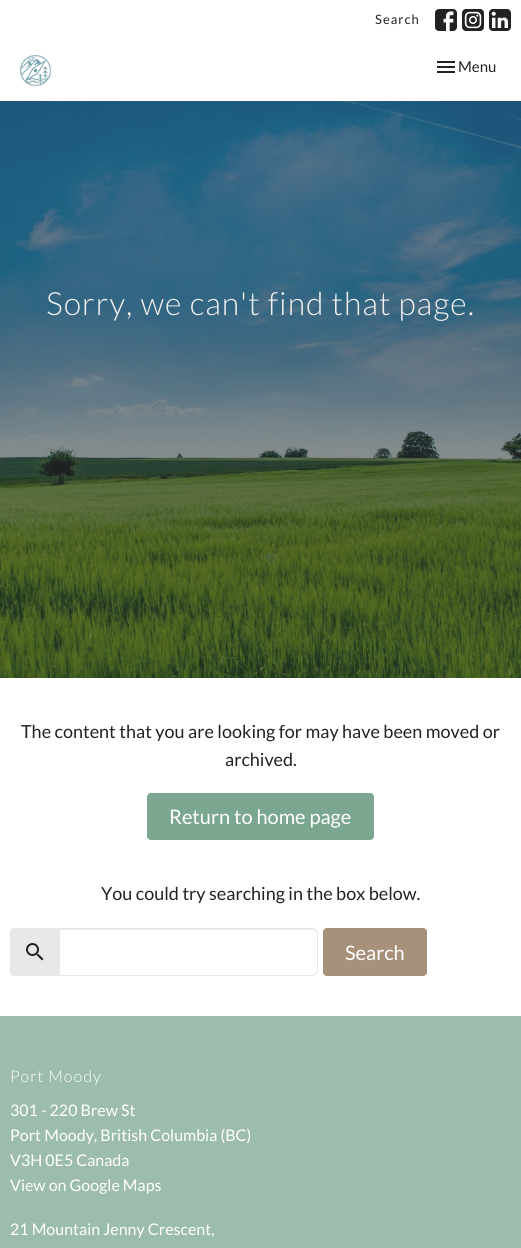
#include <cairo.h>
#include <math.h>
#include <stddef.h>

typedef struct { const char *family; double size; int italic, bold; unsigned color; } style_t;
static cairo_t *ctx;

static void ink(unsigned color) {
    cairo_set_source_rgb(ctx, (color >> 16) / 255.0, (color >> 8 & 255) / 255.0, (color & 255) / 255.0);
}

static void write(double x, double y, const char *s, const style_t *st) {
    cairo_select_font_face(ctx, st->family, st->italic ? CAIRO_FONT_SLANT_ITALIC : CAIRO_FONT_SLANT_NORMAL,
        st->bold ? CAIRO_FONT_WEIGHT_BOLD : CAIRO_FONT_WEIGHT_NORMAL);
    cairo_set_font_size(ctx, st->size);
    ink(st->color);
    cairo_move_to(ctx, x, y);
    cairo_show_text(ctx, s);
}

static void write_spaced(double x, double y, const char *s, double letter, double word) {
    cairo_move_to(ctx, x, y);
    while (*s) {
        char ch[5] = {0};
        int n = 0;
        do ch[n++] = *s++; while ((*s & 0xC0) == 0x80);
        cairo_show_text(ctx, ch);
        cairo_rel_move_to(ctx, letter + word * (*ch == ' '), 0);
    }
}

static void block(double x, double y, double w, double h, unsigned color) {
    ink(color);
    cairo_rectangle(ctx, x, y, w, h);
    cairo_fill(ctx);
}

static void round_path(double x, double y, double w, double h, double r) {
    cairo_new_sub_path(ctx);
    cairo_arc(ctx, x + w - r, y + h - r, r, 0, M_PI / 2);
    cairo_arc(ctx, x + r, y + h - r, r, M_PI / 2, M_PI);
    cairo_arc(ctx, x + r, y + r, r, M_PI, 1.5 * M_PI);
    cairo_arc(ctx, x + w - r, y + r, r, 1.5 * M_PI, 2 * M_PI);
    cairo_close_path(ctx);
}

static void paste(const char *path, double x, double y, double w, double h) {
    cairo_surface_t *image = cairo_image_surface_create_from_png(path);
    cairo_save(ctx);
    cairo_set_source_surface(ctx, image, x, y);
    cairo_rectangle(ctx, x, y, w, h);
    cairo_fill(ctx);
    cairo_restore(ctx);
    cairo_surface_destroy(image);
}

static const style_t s1 = {"Lato", 15, 0, 0, 0x222222};
static const style_t s2 = {"Lato", 18, 0, 0, 0x222222};
static const style_t s3 = {"Lato", 20, 0, 0, 0xffffff};
static const style_t s4 = {"Lato", 16, 0, 0, 0xffffff};

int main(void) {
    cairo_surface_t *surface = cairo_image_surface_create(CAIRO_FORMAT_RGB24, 521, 1248);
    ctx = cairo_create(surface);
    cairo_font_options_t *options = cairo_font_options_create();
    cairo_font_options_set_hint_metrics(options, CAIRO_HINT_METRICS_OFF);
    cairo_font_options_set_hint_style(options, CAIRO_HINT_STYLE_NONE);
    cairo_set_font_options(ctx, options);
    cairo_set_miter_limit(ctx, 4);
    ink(0xffffff);
    cairo_paint(ctx);
    cairo_select_font_face(ctx, "Lato", CAIRO_FONT_SLANT_NORMAL, CAIRO_FONT_WEIGHT_NORMAL);
    cairo_set_font_size(ctx, 13);
    ink(0x222222);
    write_spaced(375, 24, "Search", 1, 0);
    paste("pic1.png", 435, 9, 22, 22);
    paste("pic2.png", 462, 9, 22, 22);
    paste("pic3.png", 489, 9, 22, 22);
    paste("pic4.png", 20, 55, 32, 31);
    paste("pic5.png", 437, 61, 18, 12);
    write(458, 72, "Menu", &s1);
    paste("pic6.png", 0, 101, 521, 577);
    cairo_select_font_face(ctx, "Lato Light", CAIRO_FONT_SLANT_NORMAL, CAIRO_FONT_WEIGHT_NORMAL);
    cairo_set_font_size(ctx, 32);
    ink(0xf1f1f1);
    write_spaced(46, 315, "Sorry, we can't find that page.", 1, 0);
    write(21, 738, "The content that you are looking for may have been moved or", &s2);
    write(225, 766, "archived.", &s2);
    ink(0x7ba791);
    round_path(147, 793, 227, 47, 4);
    cairo_fill(ctx);
    write(169, 824, "Return to home page", &s3);
    write(101, 900, "You could try searching in the box below.", &s2);
    ink(0xe8e8e8);
    cairo_new_path(ctx);
    cairo_move_to(ctx, 14, 928);
    cairo_line_to(ctx, 59, 928);
    cairo_line_to(ctx, 59, 976);
    cairo_line_to(ctx, 14, 976);
    cairo_curve_to(ctx, 12, 976, 10, 974, 10, 972);
    cairo_line_to(ctx, 10, 932);
    cairo_curve_to(ctx, 10, 930, 12, 928, 14, 928);
    cairo_close_path(ctx);
    cairo_fill(ctx);
    ink(0xe6e6e6);
    cairo_set_fill_rule(ctx, CAIRO_FILL_RULE_EVEN_ODD);
    cairo_new_path(ctx);
    cairo_move_to(ctx, 14, 928);
    cairo_line_to(ctx, 59, 928);
    cairo_line_to(ctx, 59, 976);
    cairo_line_to(ctx, 14, 976);
    cairo_curve_to(ctx, 12, 976, 10, 974, 10, 972);
    cairo_line_to(ctx, 10, 932);
    cairo_curve_to(ctx, 10, 930, 12, 928, 14, 928);
    cairo_close_path(ctx);
    cairo_move_to(ctx, 14, 929);
    cairo_line_to(ctx, 59, 929);
    cairo_line_to(ctx, 59, 975);
    cairo_line_to(ctx, 14, 975);
    cairo_curve_to(ctx, 12, 975, 11, 974, 11, 972);
    cairo_line_to(ctx, 11, 932);
    cairo_curve_to(ctx, 11, 930, 12, 929, 14, 929);
    cairo_close_path(ctx);
    cairo_fill(ctx);
    paste("pic7.png", 26, 943, 18, 18);
    ink(0xececec);
    cairo_set_fill_rule(ctx, CAIRO_FILL_RULE_WINDING);
    cairo_new_path(ctx);
    cairo_move_to(ctx, 60, 930);
    cairo_line_to(ctx, 312, 930);
    cairo_curve_to(ctx, 315, 930, 317, 932, 317, 935);
    cairo_curve_to(ctx, 317, 932, 315, 929, 312, 929);
    cairo_line_to(ctx, 60, 929);
    cairo_close_path(ctx);
    cairo_fill(ctx);
    cairo_new_path(ctx);
    cairo_move_to(ctx, 59.5, 928.5);
    cairo_line_to(ctx, 312, 928.5);
    cairo_curve_to(ctx, 315, 928.5, 317.5, 931, 317.5, 934);
    cairo_line_to(ctx, 317.5, 970);
    cairo_curve_to(ctx, 317.5, 973, 315, 975.5, 312, 975.5);
    cairo_line_to(ctx, 59.5, 975.5);
    cairo_close_path(ctx);
    ink(0xe6e6e6);
    cairo_set_line_width(ctx, 1);
    cairo_stroke(ctx);
    ink(0xa7917b);
    round_path(323, 928, 104, 48, 4);
    cairo_fill(ctx);
    write(345, 960, "Search", &s3);
    block(0, 1016, 521, 232, 0x9cbdad);
    cairo_select_font_face(ctx, "Lato Light", CAIRO_FONT_SLANT_NORMAL, CAIRO_FONT_WEIGHT_NORMAL);
    cairo_set_font_size(ctx, 16);
    ink(0xffffff);
    write_spaced(10, 1082, "Port Moody", 1, 0);
    write(10, 1116, "301 - 220 Brew St", &s4);
    write(10, 1141, "Port Moody, British Columbia (BC)", &s4);
    write(10, 1166, "V3H 0E5 Canada", &s4);
    write(10, 1191, "View on Google Maps", &s4);
    write(10, 1235, "21 Mountain Jenny Crescent,", &s4);
    cairo_surface_write_to_png(surface, "screenshot.png");
    cairo_font_options_destroy(options);
    cairo_destroy(ctx);
    cairo_surface_destroy(surface);
    return 0;
}
